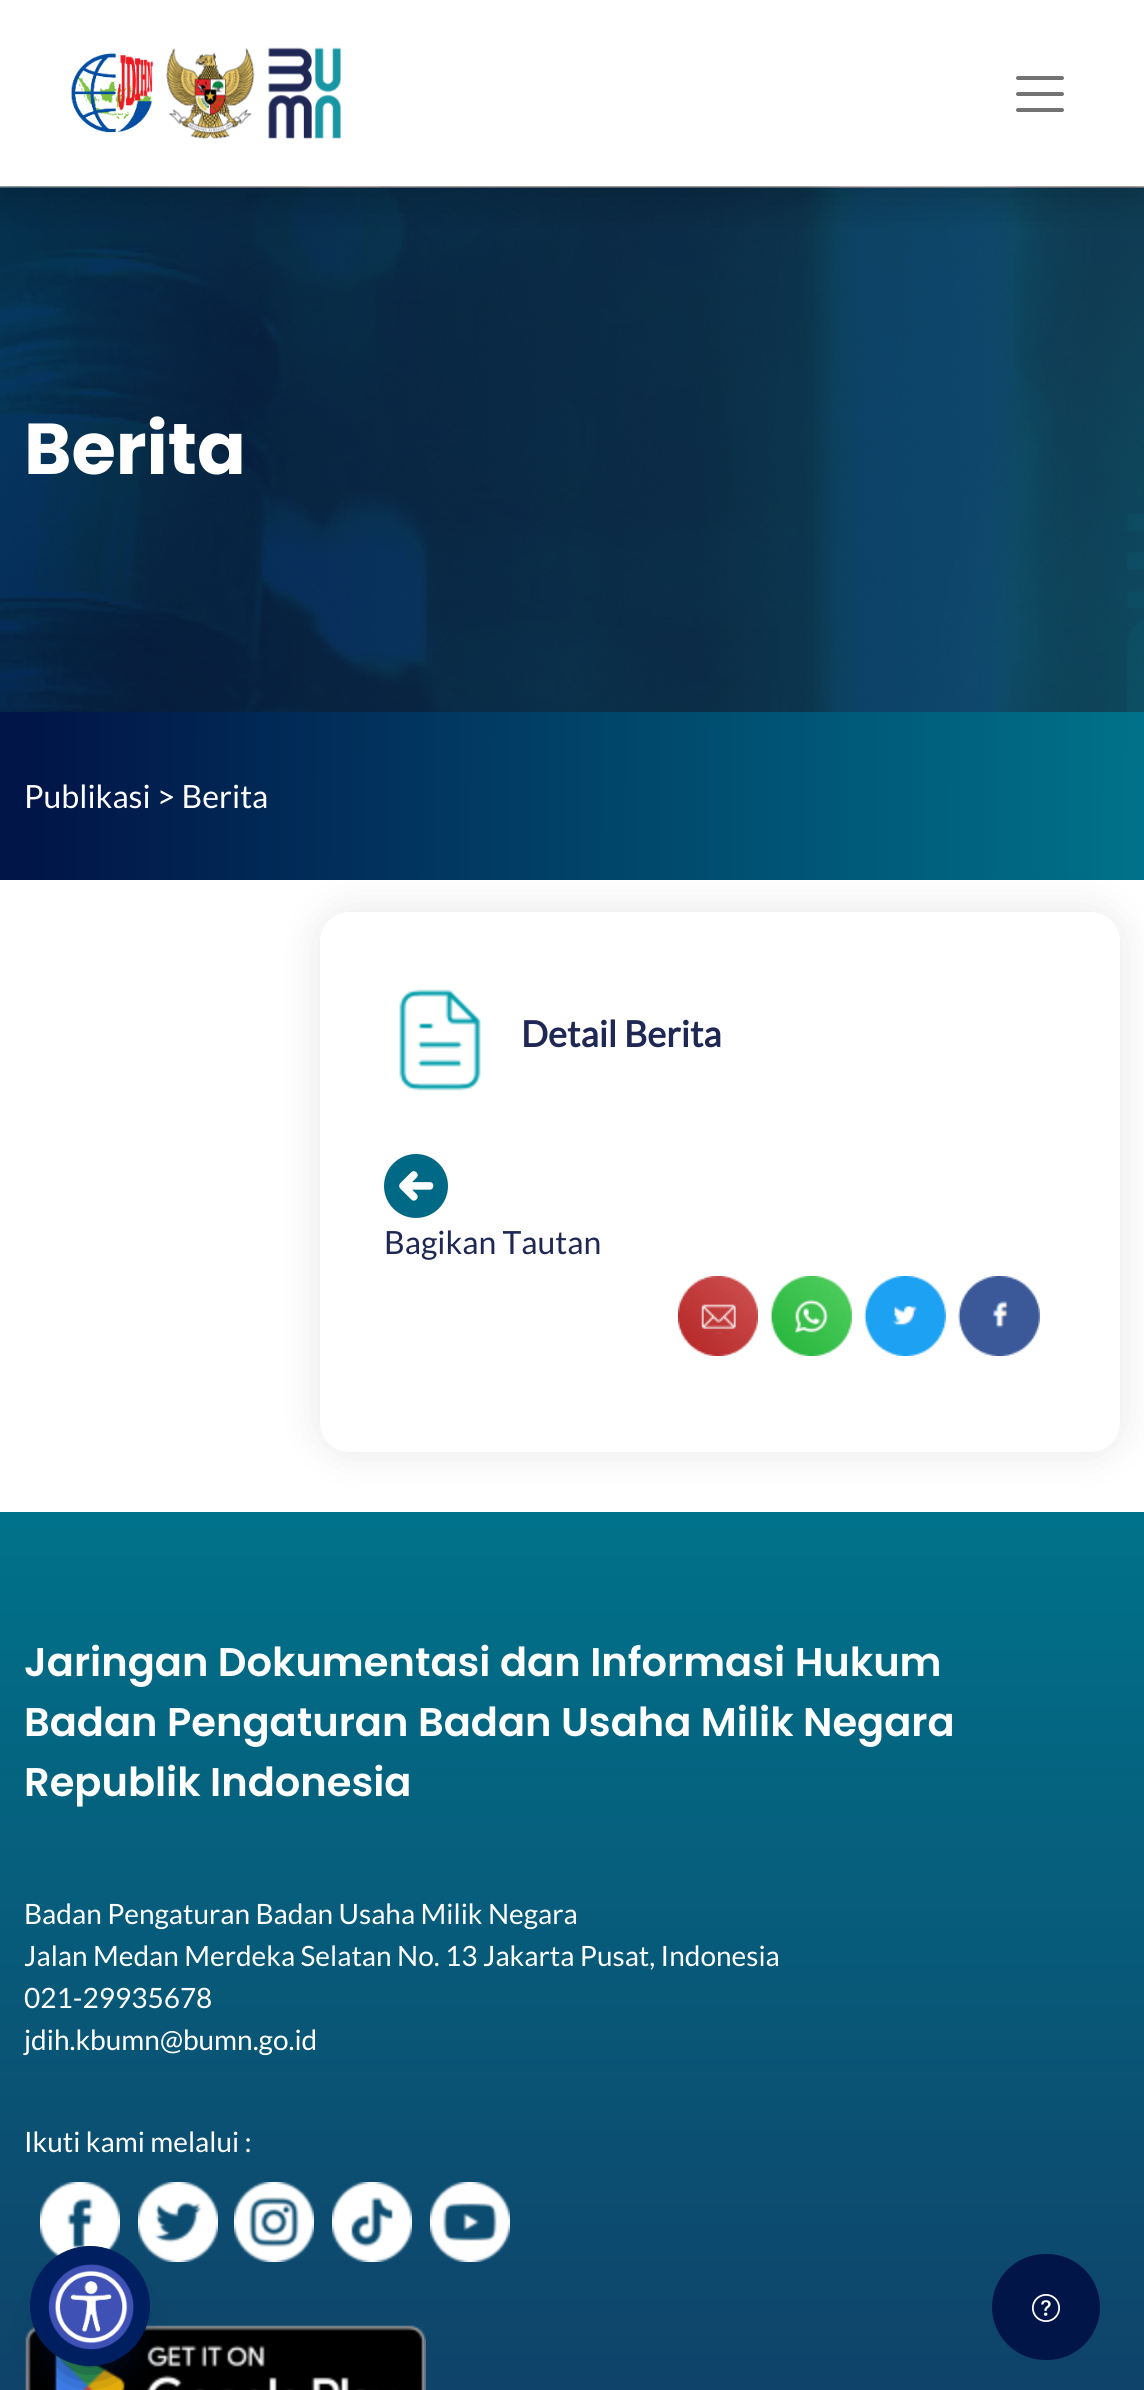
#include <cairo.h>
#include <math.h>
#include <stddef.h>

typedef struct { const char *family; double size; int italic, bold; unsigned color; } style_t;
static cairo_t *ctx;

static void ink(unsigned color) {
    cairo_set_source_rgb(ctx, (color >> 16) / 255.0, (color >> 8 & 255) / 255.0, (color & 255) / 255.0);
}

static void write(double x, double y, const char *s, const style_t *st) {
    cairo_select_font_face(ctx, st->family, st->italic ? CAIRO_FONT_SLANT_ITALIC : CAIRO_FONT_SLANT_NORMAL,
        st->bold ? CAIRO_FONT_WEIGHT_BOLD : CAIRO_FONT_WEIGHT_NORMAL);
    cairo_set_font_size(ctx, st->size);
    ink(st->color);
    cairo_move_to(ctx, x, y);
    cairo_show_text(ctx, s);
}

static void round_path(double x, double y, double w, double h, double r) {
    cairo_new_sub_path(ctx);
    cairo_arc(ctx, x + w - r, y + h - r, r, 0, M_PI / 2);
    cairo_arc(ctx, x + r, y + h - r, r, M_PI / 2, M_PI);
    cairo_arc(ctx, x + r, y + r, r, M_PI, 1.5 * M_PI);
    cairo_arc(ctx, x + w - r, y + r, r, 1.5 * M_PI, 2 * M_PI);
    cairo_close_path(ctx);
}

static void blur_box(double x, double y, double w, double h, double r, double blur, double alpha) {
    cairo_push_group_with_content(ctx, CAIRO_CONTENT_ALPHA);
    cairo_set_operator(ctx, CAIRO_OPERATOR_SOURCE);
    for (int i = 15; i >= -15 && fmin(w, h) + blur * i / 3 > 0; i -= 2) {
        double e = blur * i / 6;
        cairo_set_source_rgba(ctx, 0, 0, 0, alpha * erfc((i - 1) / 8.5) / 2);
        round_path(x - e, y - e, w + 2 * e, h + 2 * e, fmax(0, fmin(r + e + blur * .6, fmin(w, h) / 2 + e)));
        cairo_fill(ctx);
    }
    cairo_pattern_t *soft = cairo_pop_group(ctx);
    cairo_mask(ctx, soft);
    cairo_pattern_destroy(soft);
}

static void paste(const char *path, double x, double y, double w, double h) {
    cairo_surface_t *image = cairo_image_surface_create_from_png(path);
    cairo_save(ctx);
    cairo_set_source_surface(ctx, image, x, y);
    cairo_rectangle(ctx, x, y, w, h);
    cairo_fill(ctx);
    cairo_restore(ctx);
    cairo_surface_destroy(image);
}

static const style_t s1 = {"Poppins", 72, 0, 1, 0xffffff};
static const style_t s2 = {"Lato", 32, 0, 0, 0xffffff};
static const style_t s3 = {"Lato", 36, 0, 1, 0x1f2855};
static const style_t s4 = {"Lato", 32, 0, 0, 0x1f2855};
static const style_t s5 = {"Poppins SemiBold", 40, 0, 0, 0xffffff};
static const style_t s6 = {"Lato", 28, 0, 0, 0xffffff};

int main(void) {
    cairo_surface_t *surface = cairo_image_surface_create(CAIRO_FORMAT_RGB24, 1144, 2390);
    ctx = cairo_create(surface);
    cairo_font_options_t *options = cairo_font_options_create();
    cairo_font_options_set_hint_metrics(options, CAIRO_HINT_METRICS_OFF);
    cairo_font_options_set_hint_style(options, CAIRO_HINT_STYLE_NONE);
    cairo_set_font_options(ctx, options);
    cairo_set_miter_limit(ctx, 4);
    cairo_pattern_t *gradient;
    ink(0xffffff);
    cairo_paint(ctx);
    paste("pic3.png", 0, 186, 1144, 526);
    cairo_save(ctx);
    cairo_rectangle(ctx, 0, 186, 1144, 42);
    cairo_clip(ctx);
    ink(0x000000);
    blur_box(0, 8, 1144, 186, 0, 24, 0.25);
    cairo_restore(ctx);
    paste("pic1.png", 71, 53, 82, 80);
    paste("pic2.png", 166, 47, 176, 92);
    cairo_new_path(ctx);
    cairo_move_to(ctx, 1018, 78);
    cairo_line_to(ctx, 1062, 78);
    cairo_move_to(ctx, 1018, 94);
    cairo_line_to(ctx, 1062, 94);
    cairo_move_to(ctx, 1018, 110);
    cairo_line_to(ctx, 1062, 110);
    ink(0x737373);
    cairo_set_line_width(ctx, 4);
    cairo_set_line_cap(ctx, CAIRO_LINE_CAP_ROUND);
    cairo_stroke(ctx);
    write(24, 474, "Berita", &s1);
    gradient = cairo_pattern_create_linear(-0.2, 794, 1144, 798);
    cairo_pattern_add_color_stop_rgba(gradient, 0.03, 0.004, 0.082, 0.282, 1);
    cairo_pattern_add_color_stop_rgba(gradient, 1, 0, 0.447, 0.541, 1);
    cairo_set_source(ctx, gradient);
    cairo_pattern_destroy(gradient);
    cairo_rectangle(ctx, 0, 712, 1144, 168);
    cairo_fill(ctx);
    write(24, 808, "Publikasi > Berita", &s2);
    cairo_save(ctx);
    cairo_set_fill_rule(ctx, CAIRO_FILL_RULE_EVEN_ODD);
    cairo_new_path(ctx);
    cairo_move_to(ctx, 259, 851);
    cairo_line_to(ctx, 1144, 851);
    cairo_line_to(ctx, 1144, 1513);
    cairo_line_to(ctx, 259, 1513);
    cairo_close_path(ctx);
    cairo_move_to(ctx, 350, 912);
    cairo_line_to(ctx, 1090, 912);
    cairo_curve_to(ctx, 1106.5, 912, 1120, 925.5, 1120, 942);
    cairo_line_to(ctx, 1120, 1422);
    cairo_curve_to(ctx, 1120, 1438.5, 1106.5, 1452, 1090, 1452);
    cairo_line_to(ctx, 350, 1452);
    cairo_curve_to(ctx, 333.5, 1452, 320, 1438.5, 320, 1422);
    cairo_line_to(ctx, 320, 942);
    cairo_curve_to(ctx, 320, 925.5, 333.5, 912, 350, 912);
    cairo_close_path(ctx);
    cairo_clip(ctx);
    ink(0x000000);
    blur_box(320, 912, 800, 540, 30, 20, 0.1);
    cairo_restore(ctx);
    paste("pic4.png", 399, 989, 82, 102);
    write(521, 1047, "Detail Berita", &s3);
    paste("pic5.png", 384, 1154, 64, 64);
    write(384, 1254, "Bagikan Tautan", &s4);
    paste("pic6.png", 678, 1276, 80, 80);
    paste("pic7.png", 770, 1276, 82, 80);
    paste("pic8.png", 864, 1276, 82, 80);
    paste("pic9.png", 958, 1276, 82, 80);
    gradient = cairo_pattern_create_linear(572, 1512, 572, 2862);
    cairo_pattern_add_color_stop_rgba(gradient, 0, 0, 0.447, 0.541, 1);
    cairo_pattern_add_color_stop_rgba(gradient, 1, 0.09, 0.161, 0.345, 1);
    cairo_set_source(ctx, gradient);
    cairo_pattern_destroy(gradient);
    cairo_rectangle(ctx, 0, 1512, 1144, 878);
    cairo_fill(ctx);
    write(24, 1676, "Jaringan Dokumentasi dan Informasi Hukum", &s5);
    write(24, 1736, "Badan Pengaturan Badan Usaha Milik Negara", &s5);
    write(24, 1796, "Republik Indonesia", &s5);
    write(24, 1924, "Badan Pengaturan Badan Usaha Milik Negara", &s6);
    write(24, 1966, "Jalan Medan Merdeka Selatan No. 13 Jakarta Pusat, Indonesia", &s6);
    write(24, 2008, "021-29935678", &s6);
    write(24, 2050, "jdih.kbumn@bumn.go.id", &s6);
    write(24, 2152, "Ikuti kami melalui :", &s6);
    paste("pic10.png", 40, 2182, 80, 75);
    paste("pic11.png", 138, 2182, 80, 80);
    paste("pic12.png", 234, 2182, 80, 80);
    paste("pic13.png", 332, 2182, 80, 80);
    paste("pic14.png", 430, 2182, 80, 80);
    paste("pic15.png", 25, 2325, 401, 65);
    ink(0x03153b);
    blur_box(64, 2312, 52, 52, 26, 22, 1);
    ink(0x001f61);
    cairo_arc(ctx, 90, 2306, 59.5, 0, 2 * M_PI);
    cairo_fill_preserve(ctx);
    cairo_set_line_width(ctx, 1);
    cairo_set_line_cap(ctx, CAIRO_LINE_CAP_BUTT);
    cairo_stroke(ctx);
    paste("pic16.png", 48, 2264, 86, 86);
    ink(0x011548);
    round_path(992, 2254, 108, 106, 53);
    cairo_fill(ctx);
    paste("pic17.png", 1032, 2294, 28, 28);
    cairo_surface_write_to_png(surface, "screenshot.png");
    cairo_font_options_destroy(options);
    cairo_destroy(ctx);
    cairo_surface_destroy(surface);
    return 0;
}
